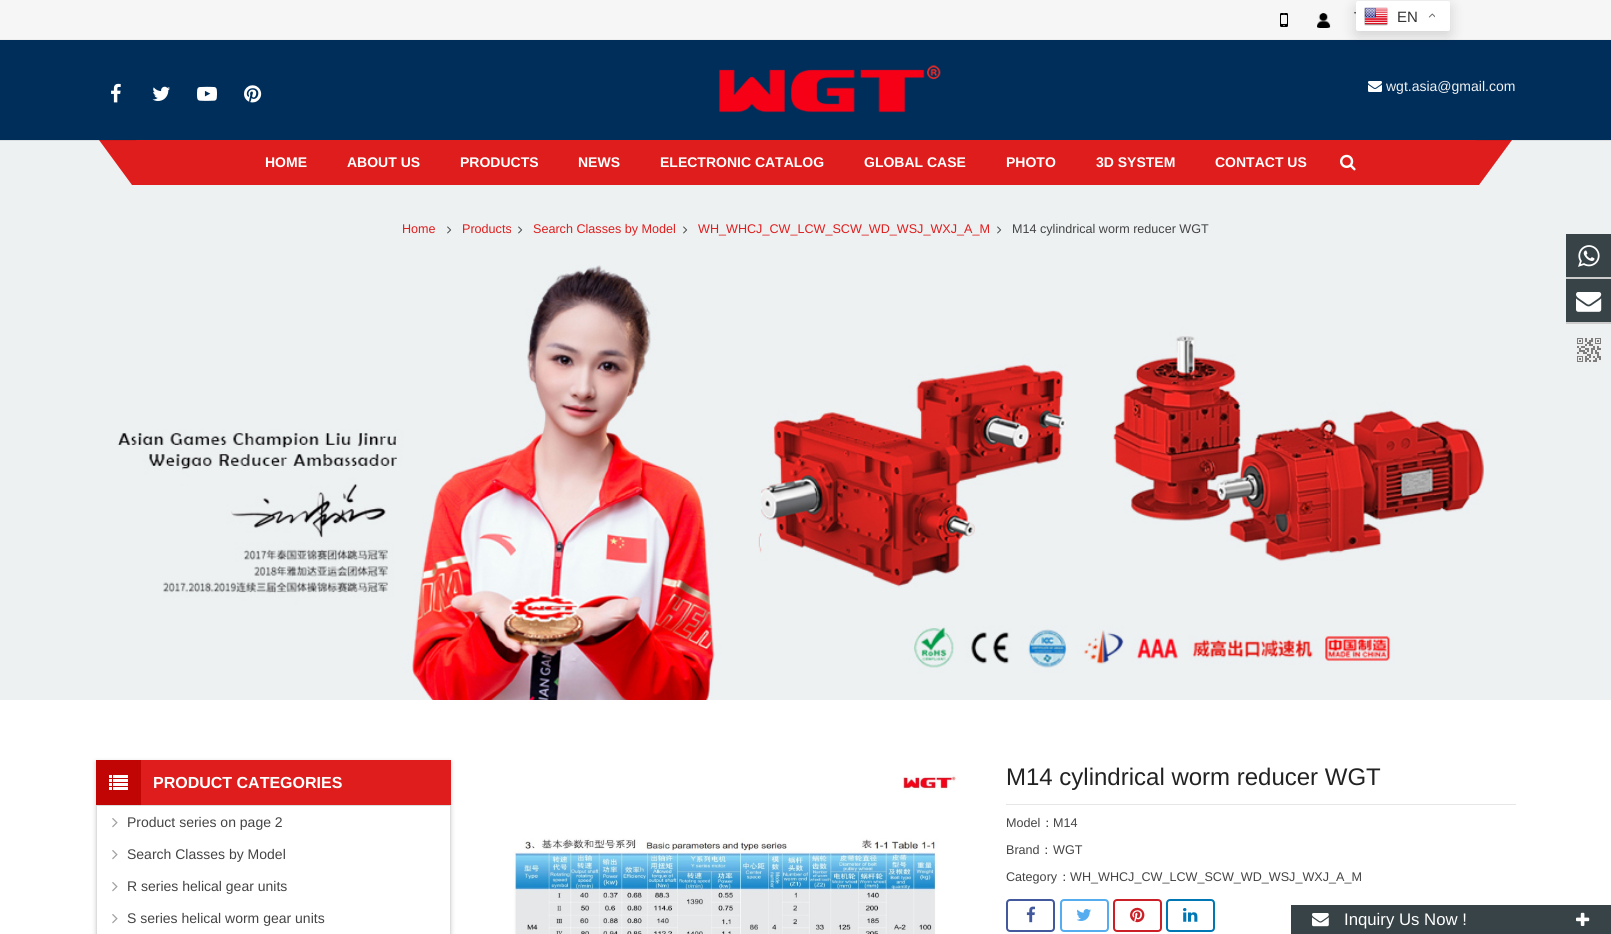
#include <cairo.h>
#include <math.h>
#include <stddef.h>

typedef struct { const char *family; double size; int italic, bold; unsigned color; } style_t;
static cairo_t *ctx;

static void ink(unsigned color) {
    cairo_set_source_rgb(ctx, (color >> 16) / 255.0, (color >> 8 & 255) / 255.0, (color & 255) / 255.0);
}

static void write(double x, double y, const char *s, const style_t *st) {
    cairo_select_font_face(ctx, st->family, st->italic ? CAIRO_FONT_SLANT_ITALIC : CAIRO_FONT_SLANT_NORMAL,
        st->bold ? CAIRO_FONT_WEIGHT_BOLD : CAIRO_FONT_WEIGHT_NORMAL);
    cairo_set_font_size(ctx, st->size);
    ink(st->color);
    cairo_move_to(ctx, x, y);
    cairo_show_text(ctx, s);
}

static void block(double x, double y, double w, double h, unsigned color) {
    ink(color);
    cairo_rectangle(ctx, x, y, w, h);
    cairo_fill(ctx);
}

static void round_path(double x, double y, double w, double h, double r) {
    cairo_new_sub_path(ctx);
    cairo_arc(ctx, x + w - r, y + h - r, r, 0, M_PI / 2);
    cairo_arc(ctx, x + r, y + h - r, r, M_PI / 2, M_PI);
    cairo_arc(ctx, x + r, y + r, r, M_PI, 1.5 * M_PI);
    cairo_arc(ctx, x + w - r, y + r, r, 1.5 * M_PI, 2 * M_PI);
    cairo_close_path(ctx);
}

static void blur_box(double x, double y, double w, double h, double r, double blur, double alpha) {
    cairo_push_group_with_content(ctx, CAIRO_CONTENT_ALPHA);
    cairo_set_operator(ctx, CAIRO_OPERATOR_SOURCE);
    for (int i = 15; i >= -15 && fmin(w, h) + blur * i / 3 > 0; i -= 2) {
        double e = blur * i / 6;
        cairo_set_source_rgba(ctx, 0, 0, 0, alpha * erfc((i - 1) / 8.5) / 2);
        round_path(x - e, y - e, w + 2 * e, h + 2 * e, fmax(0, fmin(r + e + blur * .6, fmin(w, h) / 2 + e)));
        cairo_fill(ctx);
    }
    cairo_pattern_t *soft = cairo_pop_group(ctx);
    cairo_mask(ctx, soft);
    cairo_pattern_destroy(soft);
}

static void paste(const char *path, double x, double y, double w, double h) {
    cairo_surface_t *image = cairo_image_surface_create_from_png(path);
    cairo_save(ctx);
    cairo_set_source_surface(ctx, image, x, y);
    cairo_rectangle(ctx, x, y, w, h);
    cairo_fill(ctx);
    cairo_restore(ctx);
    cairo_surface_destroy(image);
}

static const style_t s1 = {"Liberation Sans", 15, 0, 0, 0x333333};
static const style_t s2 = {"Liberation Sans", 14, 0, 0, 0xf1f1f1};
static const style_t s3 = {"Liberation Sans", 14, 0, 1, 0xffffff};
static const style_t s4 = {"Liberation Sans", 12.6, 0, 0, 0xdf1d1d};
static const style_t s5 = {"Liberation Sans", 12.6, 0, 0, 0x444444};
static const style_t s6 = {"Liberation Sans", 16, 0, 1, 0xffffff};
static const style_t s7 = {"Liberation Sans", 14, 0, 0, 0x444444};
static const style_t s8 = {"Liberation Sans", 24, 0, 0, 0x222222};
static const style_t s9 = {"WenQuanYi Zen Hei Medium", 12.6, 0, 0, 0x444444};
static const style_t s10 = {"Liberation Sans", 16.75, 0, 0, 0xffffff};

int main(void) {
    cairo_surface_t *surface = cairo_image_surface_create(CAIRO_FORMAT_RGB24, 1611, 934);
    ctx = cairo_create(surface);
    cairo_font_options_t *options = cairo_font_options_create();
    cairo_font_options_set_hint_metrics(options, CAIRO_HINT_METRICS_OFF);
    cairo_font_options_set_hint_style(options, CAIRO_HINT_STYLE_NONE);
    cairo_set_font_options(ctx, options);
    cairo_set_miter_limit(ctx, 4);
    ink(0xffffff);
    cairo_paint(ctx);
    block(0, 0, 1611, 39, 0xf6f6f6);
    block(0, 39, 1611, 1, 0xeeeeee);
    paste("pic5.png", 1354, 12, 2, 2);
    block(0, 40, 1611, 100, 0x002e5b);
    ink(0x000000);
    blur_box(1356, 6, 94, 30, 2, 7.5, 0.15);
    ink(0xffffff);
    round_path(1356, 1, 94, 30, 2);
    cairo_fill(ctx);
    paste("pic1.png", 1364, 7, 24, 19);
    write(1397, 22, "EN", &s1);
    paste("pic2.png", 1428, 13, 7, 5);
    paste("pic3.png", 1280, 13, 8, 14);
    paste("pic4.png", 1317, 13, 14, 15);
    block(0, 140, 1611, 560, 0xedf1f2);
    ink(0xdf1d1d);
    cairo_new_path(ctx);
    cairo_move_to(ctx, 99, 140);
    cairo_line_to(ctx, 299, 140);
    cairo_line_to(ctx, 332, 185);
    cairo_line_to(ctx, 132, 185);
    cairo_close_path(ctx);
    cairo_fill(ctx);
    cairo_new_path(ctx);
    cairo_move_to(ctx, 1312, 140);
    cairo_line_to(ctx, 1512, 140);
    cairo_line_to(ctx, 1479, 185);
    cairo_line_to(ctx, 1279, 185);
    cairo_close_path(ctx);
    cairo_fill(ctx);
    cairo_set_source_rgba(ctx, 0, 0, 0, 0.08);
    cairo_rectangle(ctx, 0, 140, 1611, 1);
    cairo_fill(ctx);
    paste("pic6.png", 111, 83, 10, 20);
    paste("pic7.png", 152, 86, 18, 15);
    paste("pic8.png", 197, 86, 20, 15);
    paste("pic9.png", 244, 85, 18, 18);
    paste("pic10.png", 719, 65, 222, 48);
    paste("pic11.png", 1368, 81, 14, 11);
    write(1386, 91, "wgt.asia@gmail.com", &s2);
    block(136, 140, 1340, 45, 0xdf1d1d);
    write(265, 167, "HOME", &s3);
    write(347, 167, "ABOUT US", &s3);
    write(460, 167, "PRODUCTS", &s3);
    write(578, 167, "NEWS", &s3);
    write(660, 167, "ELECTRONIC CATALOG", &s3);
    write(864, 167, "GLOBAL CASE", &s3);
    write(1006, 167, "PHOTO", &s3);
    write(1096, 167, "3D SYSTEM", &s3);
    write(1215, 167, "CONTACT US", &s3);
    paste("pic12.png", 1340, 154, 16, 17);
    paste("pic13.png", 117, 265, 1367, 435);
    write(402, 233, "Home", &s4);
    paste("pic14.png", 447, 226, 5, 8);
    write(462, 233, "Products", &s4);
    paste("pic14.png", 518, 226, 5, 8);
    write(533, 233, "Search Classes by Model", &s4);
    paste("pic14.png", 683, 226, 5, 8);
    write(698, 233, "WH_WHCJ_CW_LCW_SCW_WD_WSJ_WXJ_A_M", &s4);
    paste("pic14.png", 997, 226, 5, 8);
    write(1012, 233, "M14 cylindrical worm reducer WGT", &s5);
    cairo_save(ctx);
    cairo_set_fill_rule(ctx, CAIRO_FILL_RULE_EVEN_ODD);
    cairo_new_path(ctx);
    cairo_move_to(ctx, 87, 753);
    cairo_line_to(ctx, 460, 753);
    cairo_line_to(ctx, 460, 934);
    cairo_line_to(ctx, 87, 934);
    cairo_close_path(ctx);
    cairo_move_to(ctx, 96, 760);
    cairo_line_to(ctx, 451, 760);
    cairo_line_to(ctx, 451, 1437);
    cairo_line_to(ctx, 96, 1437);
    cairo_close_path(ctx);
    cairo_clip(ctx);
    ink(0x000000);
    blur_box(96, 762, 355, 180, 0, 2.5, 0.18);
    cairo_restore(ctx);
    block(141, 760, 310, 45, 0xdf1d1d);
    block(96, 760, 45, 45, 0xc10505);
    paste("pic15.png", 109, 775, 19, 15);
    write(153, 788, "PRODUCT CATEGORIES", &s6);
    cairo_rectangle(ctx, 96.5, 805.5, 354, 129);
    ink(0xdddddd);
    cairo_set_line_width(ctx, 1);
    cairo_stroke(ctx);
    paste("pic16.png", 112, 818, 6, 10);
    write(127, 827, "Product series on page 2", &s7);
    paste("pic16.png", 112, 850, 6, 10);
    write(127, 859, "Search Classes by Model", &s7);
    paste("pic16.png", 112, 882, 6, 10);
    write(127, 891, "R series helical gear units", &s7);
    paste("pic16.png", 112, 914, 6, 10);
    write(127, 923, "S series helical worm gear units", &s7);
    paste("pic17.png", 513, 775, 445, 159);
    block(1006, 804, 510, 1, 0xe6e6e6);
    write(1006, 785, "M14 cylindrical worm reducer WGT", &s8);
    write(1006, 827, "Model", &s5);
    write(1041, 827, "：", &s9);
    write(1053, 827, "M14", &s5);
    write(1006, 854, "Brand", &s5);
    write(1040, 854, "：", &s9);
    write(1053, 854, "WGT", &s5);
    write(1006, 881, "Category", &s5);
    write(1058, 881, "：", &s9);
    write(1070, 881, "WH_WHCJ_CW_LCW_SCW_WD_WSJ_WXJ_A_M", &s5);
    round_path(1007, 900, 47, 31, 3);
    ink(0x42599e);
    cairo_set_line_width(ctx, 2);
    cairo_stroke(ctx);
    paste("pic18.png", 1026, 906, 9, 17);
    round_path(1061, 900, 47, 31, 3);
    ink(0x55acee);
    cairo_stroke(ctx);
    paste("pic19.png", 1076, 909, 15, 12);
    round_path(1114, 900, 47, 31, 3);
    ink(0xcb2027);
    cairo_stroke(ctx);
    paste("pic20.png", 1130, 907, 15, 16);
    round_path(1167, 900, 47, 31, 3);
    ink(0x0077b5);
    cairo_stroke(ctx);
    paste("pic21.png", 1183, 908, 15, 14);
    block(1566, 234, 45, 88, 0x384347);
    block(1566, 277, 45, 2, 0xcccccc);
    paste("pic22.png", 1578, 245, 22, 22);
    block(1566, 322, 45, 2, 0xcccccc);
    paste("pic23.png", 1576, 292, 26, 20);
    paste("pic24.png", 1577, 338, 24, 24);
    block(1291, 905, 320, 29, 0x384347);
    paste("pic25.png", 1312, 913, 17, 14);
    write(1344, 925, "Inquiry Us Now !", &s10);
    paste("pic26.png", 1576, 912, 14, 14);
    cairo_surface_write_to_png(surface, "screenshot.png");
    cairo_font_options_destroy(options);
    cairo_destroy(ctx);
    cairo_surface_destroy(surface);
    return 0;
}
